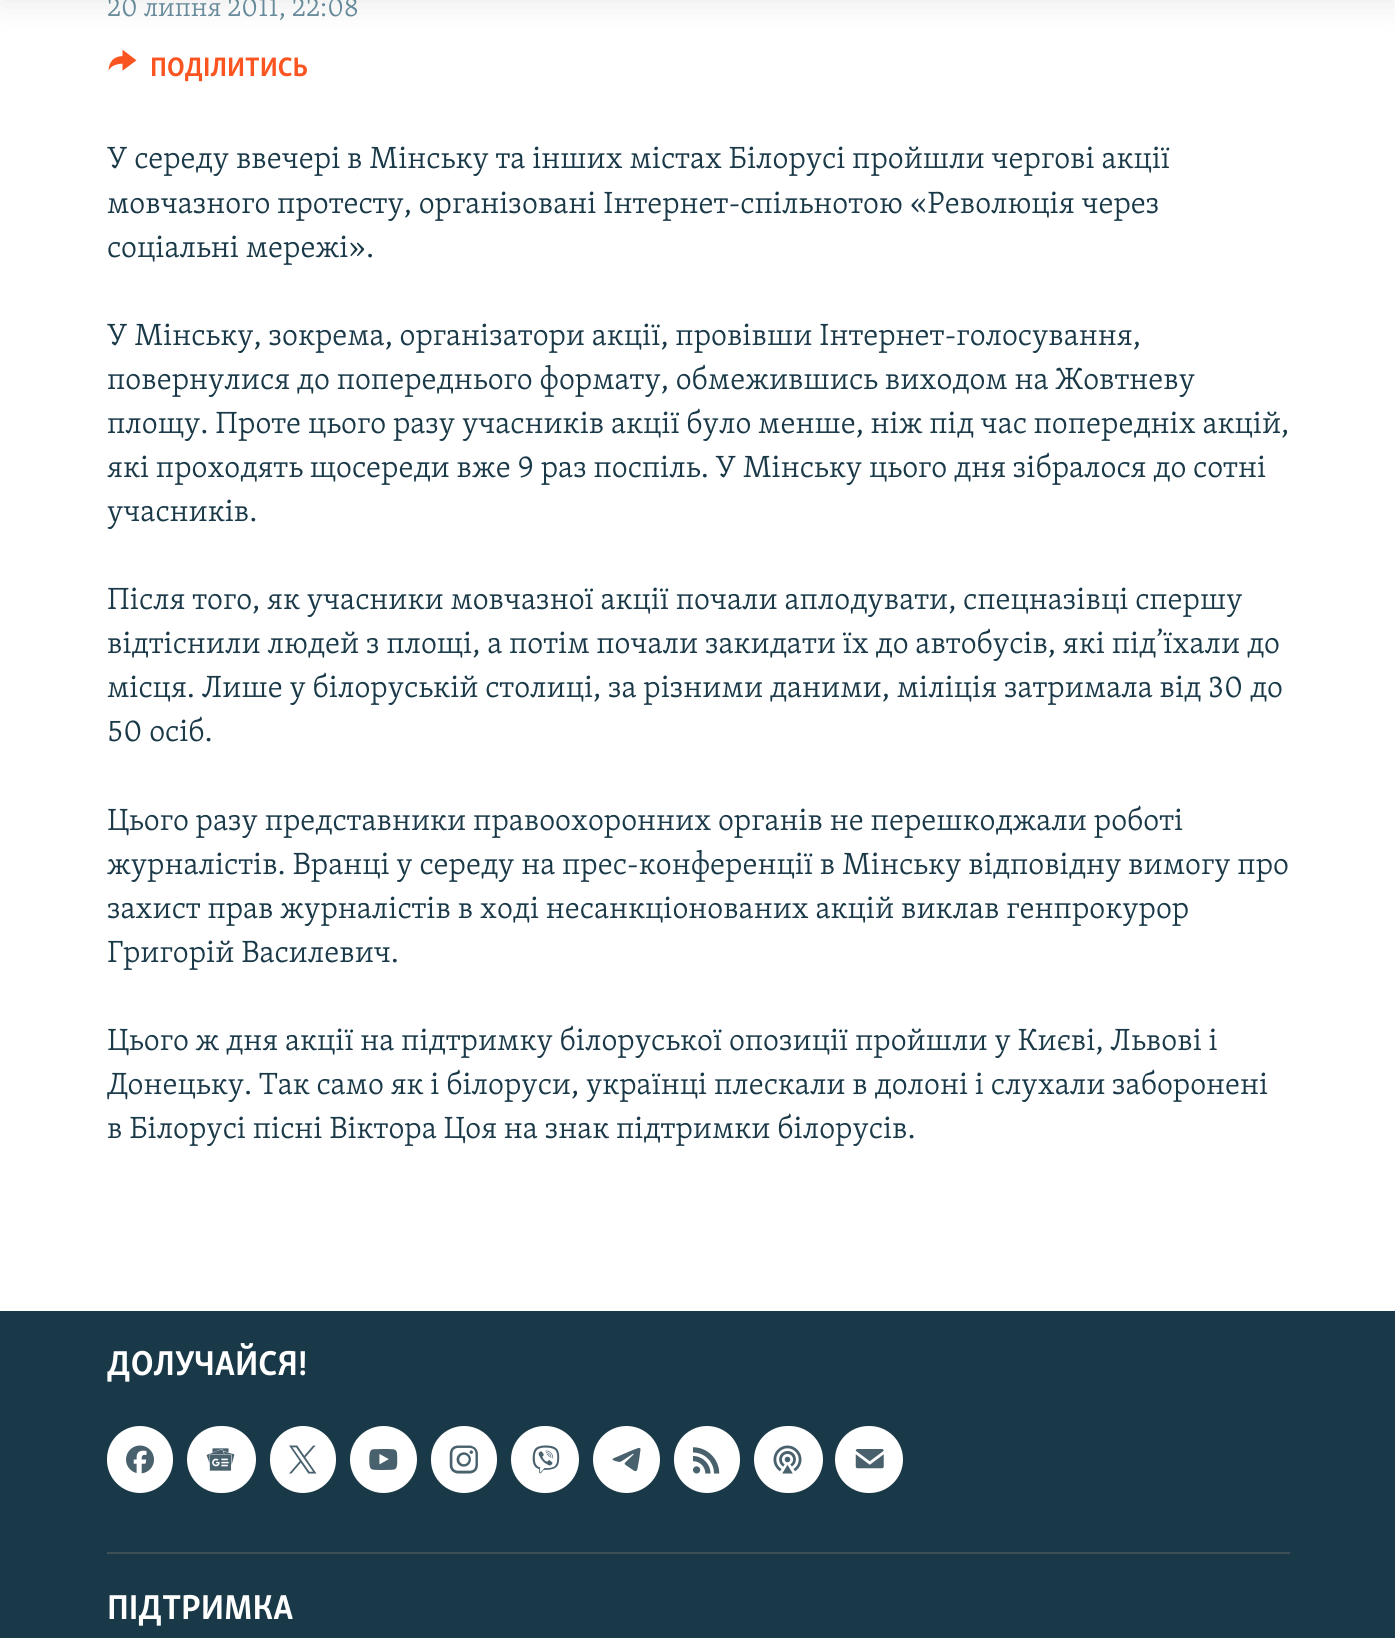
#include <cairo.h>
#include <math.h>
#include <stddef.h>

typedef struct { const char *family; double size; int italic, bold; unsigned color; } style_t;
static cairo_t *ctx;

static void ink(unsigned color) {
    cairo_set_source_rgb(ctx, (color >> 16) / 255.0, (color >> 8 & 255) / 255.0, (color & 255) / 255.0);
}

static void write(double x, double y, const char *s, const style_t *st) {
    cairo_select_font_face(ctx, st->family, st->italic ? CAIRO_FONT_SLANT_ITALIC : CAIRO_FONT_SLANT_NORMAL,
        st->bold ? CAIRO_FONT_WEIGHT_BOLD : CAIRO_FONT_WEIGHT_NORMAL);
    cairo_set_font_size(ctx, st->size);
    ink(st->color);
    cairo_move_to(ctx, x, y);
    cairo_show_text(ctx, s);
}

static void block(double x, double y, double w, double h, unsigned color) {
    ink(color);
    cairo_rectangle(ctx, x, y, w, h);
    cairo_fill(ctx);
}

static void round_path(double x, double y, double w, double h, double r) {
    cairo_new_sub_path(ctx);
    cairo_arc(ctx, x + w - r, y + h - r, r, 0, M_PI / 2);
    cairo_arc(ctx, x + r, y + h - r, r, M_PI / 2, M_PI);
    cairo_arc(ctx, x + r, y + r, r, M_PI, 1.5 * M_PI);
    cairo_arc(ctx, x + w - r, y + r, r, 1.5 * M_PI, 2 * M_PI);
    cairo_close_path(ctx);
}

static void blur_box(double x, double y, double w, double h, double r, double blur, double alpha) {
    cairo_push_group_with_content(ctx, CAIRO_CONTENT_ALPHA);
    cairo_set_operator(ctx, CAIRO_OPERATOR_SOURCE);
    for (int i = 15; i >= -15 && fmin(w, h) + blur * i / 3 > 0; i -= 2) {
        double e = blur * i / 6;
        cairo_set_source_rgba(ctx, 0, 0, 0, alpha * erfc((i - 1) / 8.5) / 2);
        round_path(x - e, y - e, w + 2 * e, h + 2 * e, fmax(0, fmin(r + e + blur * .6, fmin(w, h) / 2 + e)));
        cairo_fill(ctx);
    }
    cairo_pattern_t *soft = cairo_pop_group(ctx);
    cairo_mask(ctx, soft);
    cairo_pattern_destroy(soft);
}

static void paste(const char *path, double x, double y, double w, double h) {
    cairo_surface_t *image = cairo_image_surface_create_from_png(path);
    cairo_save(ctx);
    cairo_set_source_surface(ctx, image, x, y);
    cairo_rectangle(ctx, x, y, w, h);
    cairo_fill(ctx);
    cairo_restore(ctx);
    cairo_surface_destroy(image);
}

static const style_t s1 = {"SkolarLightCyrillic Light", 27.5, 0, 0, 0x678a9b};
static const style_t s2 = {"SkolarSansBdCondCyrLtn", 27.5, 0, 1, 0xfa5420};
static const style_t s3 = {"SkolarLightCyrillic Light", 31.5, 0, 0, 0x1a3948};
static const style_t s4 = {"SkolarSansBdCondCyrLtn", 35.5, 0, 1, 0xffffff};

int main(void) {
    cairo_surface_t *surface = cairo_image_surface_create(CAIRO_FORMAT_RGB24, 1395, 1638);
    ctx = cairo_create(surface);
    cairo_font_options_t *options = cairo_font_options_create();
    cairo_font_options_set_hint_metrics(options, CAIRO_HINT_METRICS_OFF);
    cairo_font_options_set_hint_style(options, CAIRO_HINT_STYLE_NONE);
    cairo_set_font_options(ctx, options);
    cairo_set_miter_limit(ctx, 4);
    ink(0xffffff);
    cairo_paint(ctx);
    paste("pic1.png", 108, 49, 29, 22);
    ink(0x000000);
    blur_box(0, -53, 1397, 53, 0, 17.5, 0.1);
    write(107, 16, "20 липня 2011, 22:08", &s1);
    write(150, 76, "ПОДІЛИТИСЬ", &s2);
    write(107, 168, "У середу ввечері в Мінську та інших містах Білорусі пройшли чергові акції", &s3);
    write(107, 213, "мовчазного протесту, організовані Інтернет-спільнотою «Революція через", &s3);
    write(107, 257, "соціальні мережі».", &s3);
    write(107, 345, "У Мінську, зокрема, організатори акції, провівши Інтернет-голосування,", &s3);
    write(107, 389, "повернулися до попереднього формату, обмежившись виходом на Жовтневу", &s3);
    write(107, 433, "площу. Проте цього разу учасників акції було менше, ніж під час попередніх акцій,", &s3);
    write(107, 477, "які проходять щосереди вже 9 раз поспіль. У Мінську цього дня зібралося до сотні", &s3);
    write(107, 521, "учасників.", &s3);
    write(107, 609, "Після того, як учасники мовчазної акції почали аплодувати, спецназівці спершу", &s3);
    write(107, 653, "відтіснили людей з площі, а потім почали закидати їх до автобусів, які під’їхали до", &s3);
    write(107, 697, "місця. Лише у білоруській столиці, за різними даними, міліція затримала від 30 до", &s3);
    write(107, 741, "50 осіб.", &s3);
    write(107, 830, "Цього разу представники правоохоронних органів не перешкоджали роботі", &s3);
    write(107, 874, "журналістів. Вранці у середу на прес-конференції в Мінську відповідну вимогу про", &s3);
    write(107, 918, "захист прав журналістів в ході несанкціонованих акцій виклав генпрокурор", &s3);
    write(107, 962, "Григорій Василевич.", &s3);
    write(107, 1050, "Цього ж дня акції на підтримку білоруської опозиції пройшли у Києві, Львові і", &s3);
    write(107, 1094, "Донецьку. Так само як і білоруси, українці плескали в долоні і слухали заборонені", &s3);
    write(107, 1138, "в Білорусі пісні Віктора Цоя на знак підтримки білорусів.", &s3);
    block(0, 1311, 1395, 327, 0x1a3948);
    write(107, 1375, "ДОЛУЧАЙСЯ!", &s4);
    round_path(107, 1426, 66, 67, 33);
    cairo_fill(ctx);
    paste("pic2.png", 126, 1445, 28, 29);
    round_path(187, 1426, 69, 67, 33.5);
    cairo_fill(ctx);
    paste("pic3.png", 206, 1448, 29, 23);
    round_path(270, 1426, 66, 67, 33);
    cairo_fill(ctx);
    paste("pic4.png", 289, 1445, 28, 29);
    cairo_arc(ctx, 383.5, 1459.5, 33.5, 0, 2 * M_PI);
    cairo_fill(ctx);
    paste("pic5.png", 369, 1449, 29, 21);
    round_path(431, 1426, 66, 67, 33);
    cairo_fill(ctx);
    paste("pic6.png", 449, 1445, 29, 29);
    round_path(511, 1426, 68, 67, 33.5);
    cairo_fill(ctx);
    paste("pic7.png", 532, 1445, 28, 29);
    cairo_arc(ctx, 626.5, 1459.5, 33.5, 0, 2 * M_PI);
    cairo_fill(ctx);
    paste("pic8.png", 612, 1447, 29, 25);
    round_path(674, 1426, 66, 67, 33);
    cairo_fill(ctx);
    paste("pic9.png", 693, 1447, 27, 27);
    round_path(754, 1426, 69, 67, 33.5);
    cairo_fill(ctx);
    paste("pic10.png", 773, 1445, 29, 29);
    round_path(835, 1426, 68, 67, 33.5);
    cairo_fill(ctx);
    paste("pic11.png", 855, 1449, 29, 20);
    block(107, 1552, 1183, 2, 0x3e4f57);
    write(107, 1619, "ПІДТРИМКА", &s4);
    cairo_surface_write_to_png(surface, "screenshot.png");
    cairo_font_options_destroy(options);
    cairo_destroy(ctx);
    cairo_surface_destroy(surface);
    return 0;
}
